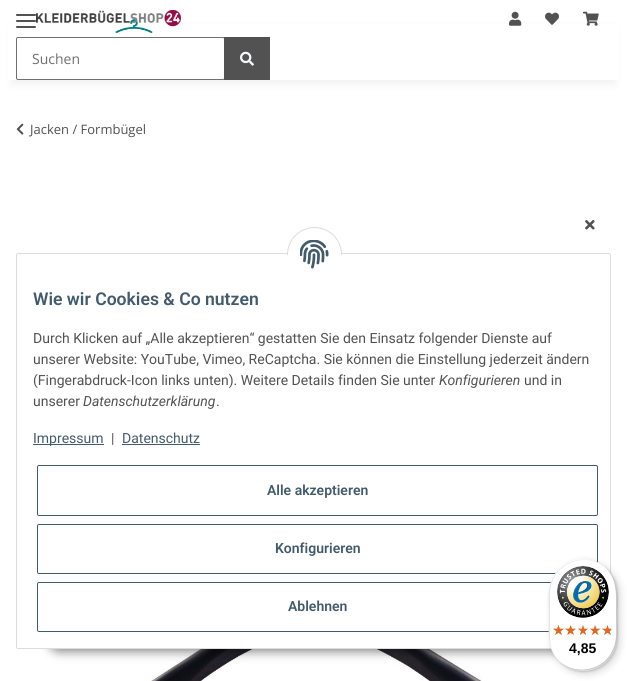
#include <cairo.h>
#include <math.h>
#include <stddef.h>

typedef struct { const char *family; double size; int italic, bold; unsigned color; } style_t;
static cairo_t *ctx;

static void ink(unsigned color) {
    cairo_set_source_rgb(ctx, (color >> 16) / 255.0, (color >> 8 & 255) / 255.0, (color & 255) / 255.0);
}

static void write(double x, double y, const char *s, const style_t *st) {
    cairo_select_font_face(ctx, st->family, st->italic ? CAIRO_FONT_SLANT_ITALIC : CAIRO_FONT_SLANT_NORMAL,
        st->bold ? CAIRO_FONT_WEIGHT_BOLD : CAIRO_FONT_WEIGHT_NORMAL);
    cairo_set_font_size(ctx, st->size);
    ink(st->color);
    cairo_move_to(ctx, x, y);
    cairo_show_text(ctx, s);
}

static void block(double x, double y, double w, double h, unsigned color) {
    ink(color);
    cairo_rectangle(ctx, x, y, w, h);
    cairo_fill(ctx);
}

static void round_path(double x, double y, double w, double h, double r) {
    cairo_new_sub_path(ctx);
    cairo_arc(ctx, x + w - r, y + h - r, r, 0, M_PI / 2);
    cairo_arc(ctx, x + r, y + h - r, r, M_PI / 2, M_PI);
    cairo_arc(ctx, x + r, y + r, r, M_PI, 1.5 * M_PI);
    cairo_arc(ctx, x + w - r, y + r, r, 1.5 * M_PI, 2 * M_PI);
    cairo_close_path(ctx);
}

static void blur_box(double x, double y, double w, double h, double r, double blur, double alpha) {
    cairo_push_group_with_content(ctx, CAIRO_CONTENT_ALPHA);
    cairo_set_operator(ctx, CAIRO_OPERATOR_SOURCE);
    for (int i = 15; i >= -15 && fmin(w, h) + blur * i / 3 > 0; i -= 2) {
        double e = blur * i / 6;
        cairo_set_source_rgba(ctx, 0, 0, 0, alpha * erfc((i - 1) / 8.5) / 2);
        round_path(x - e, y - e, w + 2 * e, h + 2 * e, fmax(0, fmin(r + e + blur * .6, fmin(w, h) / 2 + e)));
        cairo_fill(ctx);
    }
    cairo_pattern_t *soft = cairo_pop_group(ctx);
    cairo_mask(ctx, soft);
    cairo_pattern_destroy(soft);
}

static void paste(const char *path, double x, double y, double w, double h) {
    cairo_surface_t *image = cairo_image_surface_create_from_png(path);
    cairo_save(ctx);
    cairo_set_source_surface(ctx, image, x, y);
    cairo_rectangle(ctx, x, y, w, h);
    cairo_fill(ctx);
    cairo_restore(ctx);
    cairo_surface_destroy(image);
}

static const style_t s1 = {"Open Sans", 14, 0, 0, 0x707070};
static const style_t s2 = {"Open Sans", 13, 0, 0, 0x525252};
static const style_t s3 = {"Roboto SemiBold", 17.6, 0, 0, 0x435a6b};
static const style_t s4 = {"Roboto", 14, 0, 0, 0x525252};
static const style_t s5 = {"Roboto", 14, 1, 0, 0x525252};
static const style_t s6 = {"Roboto", 14, 0, 0, 0x435a6b};
static const style_t s7 = {"Roboto SemiBold", 14, 0, 0, 0x435a6b};
static const style_t s8 = {"Liberation Sans", 14, 0, 1, 0x000000};

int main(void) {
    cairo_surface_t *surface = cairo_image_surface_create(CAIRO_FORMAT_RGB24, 627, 681);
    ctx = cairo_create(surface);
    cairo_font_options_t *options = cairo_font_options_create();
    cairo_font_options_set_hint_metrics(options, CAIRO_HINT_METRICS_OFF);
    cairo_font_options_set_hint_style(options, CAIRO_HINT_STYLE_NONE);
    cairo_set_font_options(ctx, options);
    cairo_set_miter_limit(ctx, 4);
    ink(0xffffff);
    cairo_paint(ctx);
    ink(0x000000);
    blur_box(12, 28, 603, 56, 0, 4.5, 0.06);
    block(8, 24, 611, 56, 0xffffff);
    ink(0x525252);
    round_path(16, 20, 20, 2, 1);
    cairo_fill(ctx);
    round_path(16, 14, 20, 2, 1);
    cairo_fill(ctx);
    round_path(16, 26, 20, 2, 1);
    cairo_fill(ctx);
    paste("pic1.png", 36, 10, 145, 23);
    paste("pic2.png", 509, 11, 13, 15);
    paste("pic3.png", 545, 12, 14, 13);
    paste("pic4.png", 583, 11, 16, 15);
    round_path(16.5, 37.5, 208, 42, 1.5);
    ink(0x707070);
    cairo_set_line_width(ctx, 1);
    cairo_stroke(ctx);
    write(32, 64, "Suchen", &s1);
    block(224, 37, 46, 43, 0x525252);
    paste("pic5.png", 240, 51, 14, 15);
    paste("pic6.png", 16, 123, 8, 12);
    write(30, 134, "Jacken / Formbügel", &s2);
    paste("pic7.png", 585, 220, 10, 10);
    paste("pic8.png", 151, 649, 331, 32);
    ink(0x000000);
    blur_box(47, 620, 533, 32, 16, 5, 0.45);
    ink(0xffffff);
    round_path(16.5, 253.5, 594, 395, 1.5);
    cairo_fill_preserve(ctx);
    ink(0xdddddd);
    cairo_stroke(ctx);
    ink(0xffffff);
    cairo_arc(ctx, 314.5, 254.5, 27, 0, 2 * M_PI);
    cairo_fill_preserve(ctx);
    ink(0xdddddd);
    cairo_stroke(ctx);
    block(287, 255, 55, 27, 0xffffff);
    paste("pic9.png", 300, 240, 29, 29);
    write(33, 305, "Wie wir Cookies & Co nutzen", &s3);
    write(33, 343, "Durch Klicken auf „Alle akzeptieren“ gestatten Sie den Einsatz folgender Dienste auf", &s4);
    write(33, 364, "unserer Website: YouTube, Vimeo, ReCaptcha. Sie können die Einstellung jederzeit ändern", &s4);
    write(33, 385, "(Fingerabdruck-Icon links unten). Weitere Details finden Sie unter", &s4);
    write(439, 385, "Konfigurieren", &s5);
    write(524, 385, "und in", &s4);
    write(33, 406, "unserer", &s4);
    write(83, 406, "Datenschutzerklärung", &s5);
    write(216, 406, ".", &s4);
    block(33, 444, 71, 1, 0x435a6b);
    write(33, 443, "Impressum", &s6);
    write(111, 443, "|", &s4);
    write(122, 443, "Datenschutz", &s6);
    block(122, 444, 78, 1, 0x435a6b);
    round_path(37.5, 465.5, 560, 50, 1.5);
    cairo_stroke(ctx);
    write(267, 495, "Alle akzeptieren", &s7);
    round_path(37.5, 524.5, 560, 49, 1.5);
    cairo_stroke(ctx);
    write(275, 553, "Konfigurieren", &s7);
    round_path(37.5, 582.5, 560, 49, 1.5);
    cairo_stroke(ctx);
    write(288, 611, "Ablehnen", &s7);
    ink(0x000000);
    blur_box(552, 562, 68, 112, 34, 4, 0.15);
    blur_box(550, 560, 68, 112, 34, 1, 0.15);
    ink(0xffffff);
    round_path(549, 559, 68, 112, 34);
    cairo_fill(ctx);
    ink(0xe5e5e5);
    cairo_new_path(ctx);
    cairo_move_to(ctx, 584, 560);
    cairo_curve_to(ctx, 592, 560, 600, 563, 606, 568);
    cairo_curve_to(ctx, 589, 553, 561, 559, 552, 580);
    cairo_curve_to(ctx, 547, 590, 549, 604, 549, 615);
    cairo_curve_to(ctx, 549, 630, 546, 647, 558, 660);
    cairo_curve_to(ctx, 553, 654, 550, 646, 550, 638);
    cairo_line_to(ctx, 550, 594);
    cairo_curve_to(ctx, 550, 575, 565, 560, 584, 560);
    cairo_close_path(ctx);
    cairo_fill(ctx);
    cairo_set_source_rgba(ctx, 0, 0, 0, 0.2);
    cairo_new_path(ctx);
    cairo_move_to(ctx, 560, 662);
    cairo_curve_to(ctx, 577, 677, 605, 671, 614, 650);
    cairo_curve_to(ctx, 619, 640, 617, 626, 617, 615);
    cairo_curve_to(ctx, 617, 600, 620, 583, 608, 570);
    cairo_curve_to(ctx, 618, 583, 616, 599, 616, 614);
    cairo_curve_to(ctx, 616, 625, 618, 639, 613, 649);
    cairo_curve_to(ctx, 605, 670, 577, 676, 560, 662);
    cairo_close_path(ctx);
    cairo_fill(ctx);
    cairo_set_source_rgba(ctx, 0.196, 0.196, 0.196, 0.2);
    cairo_new_path(ctx);
    cairo_move_to(ctx, 556, 658);
    cairo_curve_to(ctx, 563, 666, 572, 671, 583, 671);
    cairo_curve_to(ctx, 602, 671, 617, 656, 617, 637);
    cairo_line_to(ctx, 617, 593);
    cairo_curve_to(ctx, 617, 582, 612, 573, 604, 566);
    cairo_curve_to(ctx, 611, 573, 616, 582, 616, 592);
    cairo_line_to(ctx, 616, 636);
    cairo_curve_to(ctx, 616, 655, 601, 670, 582, 670);
    cairo_curve_to(ctx, 572, 670, 563, 665, 556, 658);
    cairo_close_path(ctx);
    cairo_fill(ctx);
    cairo_set_source_rgba(ctx, 1, 1, 1, 0.3);
    cairo_new_path(ctx);
    cairo_move_to(ctx, 556, 658);
    cairo_curve_to(ctx, 563, 666, 572, 671, 583, 671);
    cairo_curve_to(ctx, 602, 671, 617, 656, 617, 637);
    cairo_line_to(ctx, 617, 593);
    cairo_curve_to(ctx, 617, 582, 612, 573, 604, 566);
    cairo_curve_to(ctx, 611, 573, 616, 582, 616, 592);
    cairo_line_to(ctx, 616, 636);
    cairo_curve_to(ctx, 616, 655, 601, 670, 582, 670);
    cairo_curve_to(ctx, 572, 670, 563, 665, 556, 658);
    cairo_close_path(ctx);
    cairo_fill(ctx);
    paste("pic10.png", 557, 566, 52, 52);
    paste("pic11.png", 553, 625, 11, 10);
    paste("pic12.png", 566, 625, 10, 10);
    paste("pic13.png", 578, 625, 10, 10);
    paste("pic14.png", 590, 625, 11, 10);
    paste("pic14.png", 602, 625, 11, 10);
    paste("pic15.png", 553, 625, 11, 10);
    paste("pic16.png", 565, 625, 11, 10);
    paste("pic17.png", 578, 625, 10, 10);
    paste("pic18.png", 590, 625, 10, 10);
    paste("pic19.png", 602, 625, 9, 10);
    write(569, 653, "4,85", &s8);
    cairo_surface_write_to_png(surface, "screenshot.png");
    cairo_font_options_destroy(options);
    cairo_destroy(ctx);
    cairo_surface_destroy(surface);
    return 0;
}
